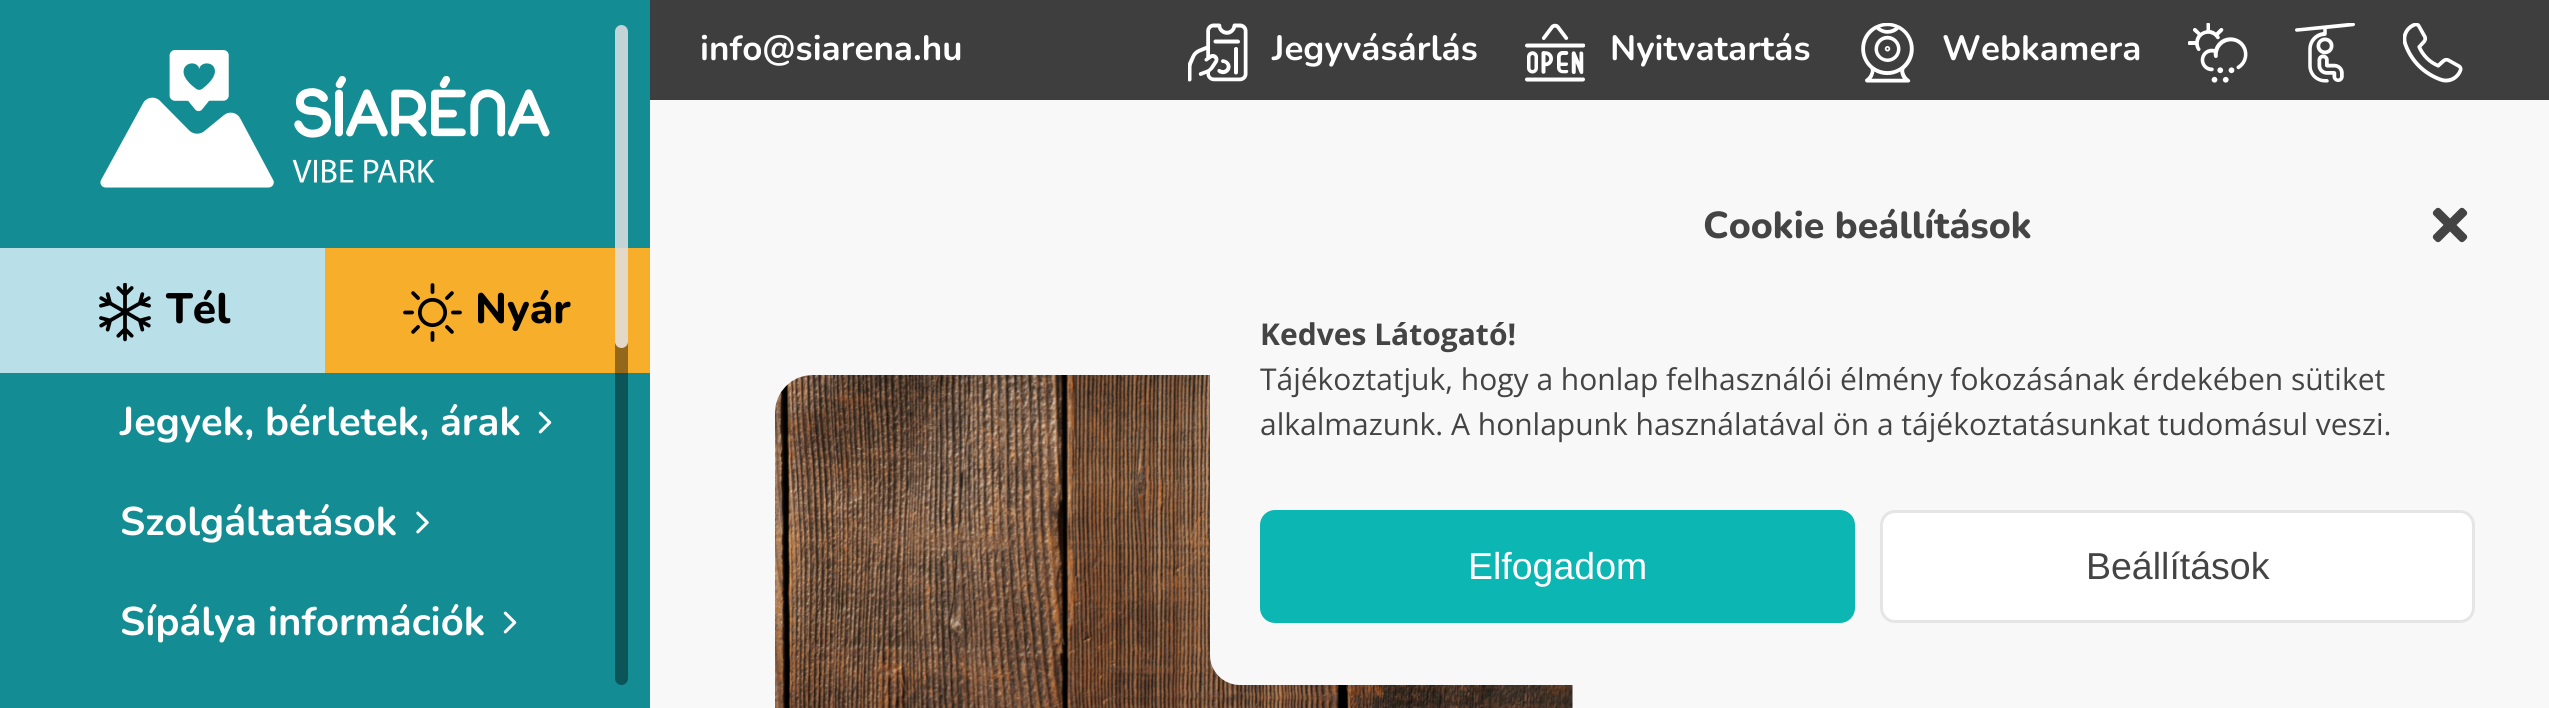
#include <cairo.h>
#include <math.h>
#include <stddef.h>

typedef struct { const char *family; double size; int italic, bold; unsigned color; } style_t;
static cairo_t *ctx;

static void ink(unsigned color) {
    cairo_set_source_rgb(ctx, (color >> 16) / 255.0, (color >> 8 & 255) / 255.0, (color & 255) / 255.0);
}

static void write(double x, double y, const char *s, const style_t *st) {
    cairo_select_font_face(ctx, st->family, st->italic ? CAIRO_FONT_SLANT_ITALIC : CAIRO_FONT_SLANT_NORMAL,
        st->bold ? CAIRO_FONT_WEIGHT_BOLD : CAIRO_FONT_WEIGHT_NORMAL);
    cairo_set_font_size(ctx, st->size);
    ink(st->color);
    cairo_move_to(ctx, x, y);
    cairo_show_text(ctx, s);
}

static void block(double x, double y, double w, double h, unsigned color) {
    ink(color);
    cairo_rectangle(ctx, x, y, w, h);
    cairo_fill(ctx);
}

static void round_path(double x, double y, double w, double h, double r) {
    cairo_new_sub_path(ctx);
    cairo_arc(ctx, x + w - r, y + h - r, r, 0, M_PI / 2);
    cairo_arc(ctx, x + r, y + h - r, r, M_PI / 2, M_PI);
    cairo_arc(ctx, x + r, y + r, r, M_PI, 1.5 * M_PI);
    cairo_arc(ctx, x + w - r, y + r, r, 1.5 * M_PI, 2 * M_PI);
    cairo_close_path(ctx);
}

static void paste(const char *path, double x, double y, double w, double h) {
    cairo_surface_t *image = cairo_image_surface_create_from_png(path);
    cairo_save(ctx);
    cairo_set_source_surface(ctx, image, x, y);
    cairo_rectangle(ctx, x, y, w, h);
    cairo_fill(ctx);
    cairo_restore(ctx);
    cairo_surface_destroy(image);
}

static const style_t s1 = {"Nunito", 35, 0, 1, 0xffffff};
static const style_t s2 = {"Nunito ExtraBold", 42.5, 0, 0, 0x000000};
static const style_t s3 = {"Nunito", 40, 0, 1, 0xffffff};
static const style_t s4 = {"Nunito ExtraBold", 37.5, 0, 0, 0x444444};
static const style_t s5 = {"Open Sans", 30, 0, 1, 0x444444};
static const style_t s6 = {"Open Sans", 30, 0, 0, 0x444444};
static const style_t s7 = {"Liberation Sans", 37.5, 0, 0, 0xffffff};
static const style_t s8 = {"Liberation Sans", 37.5, 0, 0, 0x444444};

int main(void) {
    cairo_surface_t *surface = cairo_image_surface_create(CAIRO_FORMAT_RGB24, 2549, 708);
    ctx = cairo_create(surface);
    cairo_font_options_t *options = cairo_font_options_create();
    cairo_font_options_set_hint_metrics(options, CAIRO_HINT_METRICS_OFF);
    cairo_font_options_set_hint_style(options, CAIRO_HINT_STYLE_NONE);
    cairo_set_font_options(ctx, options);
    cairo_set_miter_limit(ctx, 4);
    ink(0xf8f8f8);
    cairo_paint(ctx);
    block(650, 0, 1899, 100, 0x3e3e3e);
    write(700, 60, "info@siarena.hu", &s1);
    paste("pic1.png", 1188, 23, 60, 59);
    write(1272, 60, "Jegyvásárlás", &s1);
    paste("pic2.png", 1525, 23, 60, 59);
    write(1610, 60, "Nyitvatartás", &s1);
    paste("pic3.png", 1861, 23, 53, 60);
    write(1942, 60, "Webkamera", &s1);
    paste("pic4.png", 2188, 23, 60, 60);
    paste("pic5.png", 2295, 23, 60, 60);
    paste("pic6.png", 2403, 23, 60, 60);
    block(0, 0, 650, 708, 0x138d93);
    paste("pic7.png", 100, 50, 450, 138);
    block(0, 248, 325, 125, 0xb9dfe8);
    paste("pic8.png", 99, 283, 52, 59);
    write(166, 323, "Tél", &s2);
    block(325, 248, 325, 125, 0xf6ae2b);
    paste("pic9.png", 403, 283, 59, 59);
    write(475, 323, "Nyár", &s2);
    write(120, 435, "Jegyek, bérletek, árak", &s3);
    paste("pic10.png", 538, 411, 14, 23);
    write(120, 535, "Szolgáltatások", &s3);
    paste("pic11.png", 416, 511, 13, 23);
    write(120, 635, "Sípálya információk", &s3);
    paste("pic10.png", 503, 611, 14, 23);
    cairo_set_source_rgba(ctx, 0, 0, 0, 0.4);
    round_path(615, 25, 13, 660, 6.5);
    cairo_fill(ctx);
    cairo_set_source_rgba(ctx, 1, 1, 1, 0.75);
    round_path(615, 25, 13, 323, 6.5);
    cairo_fill(ctx);
    ink(0xffffff);
    round_path(775, 375, 798, 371, 38);
    cairo_fill(ctx);
    paste("pic12.png", 775, 375, 798, 333);
    ink(0xf8f8f8);
    round_path(1210, 150, 1315, 535, 30);
    cairo_fill(ctx);
    write(1703, 238, "Cookie beállítások", &s4);
    paste("pic13.png", 2432, 207, 36, 36);
    write(1260, 345, "Kedves Látogató!", &s5);
    write(1260, 390, "Tájékoztatjuk, hogy a honlap felhasználói élmény fokozásának érdekében sütiket", &s6);
    write(1260, 435, "alkalmazunk. A honlapunk használatával ön a tájékoztatásunkat tudomásul veszi.", &s6);
    ink(0x0bb6b3);
    round_path(1261.5, 511.5, 592, 110, 13.5);
    cairo_fill_preserve(ctx);
    cairo_set_line_width(ctx, 3);
    cairo_stroke(ctx);
    write(1468, 579, "Elfogadom", &s7);
    round_path(1881.5, 511.5, 592, 110, 13.5);
    cairo_fill_preserve(ctx);
    ink(0xe5e5e5);
    cairo_stroke(ctx);
    write(2086, 579, "Beállítások", &s8);
    cairo_surface_write_to_png(surface, "screenshot.png");
    cairo_font_options_destroy(options);
    cairo_destroy(ctx);
    cairo_surface_destroy(surface);
    return 0;
}
